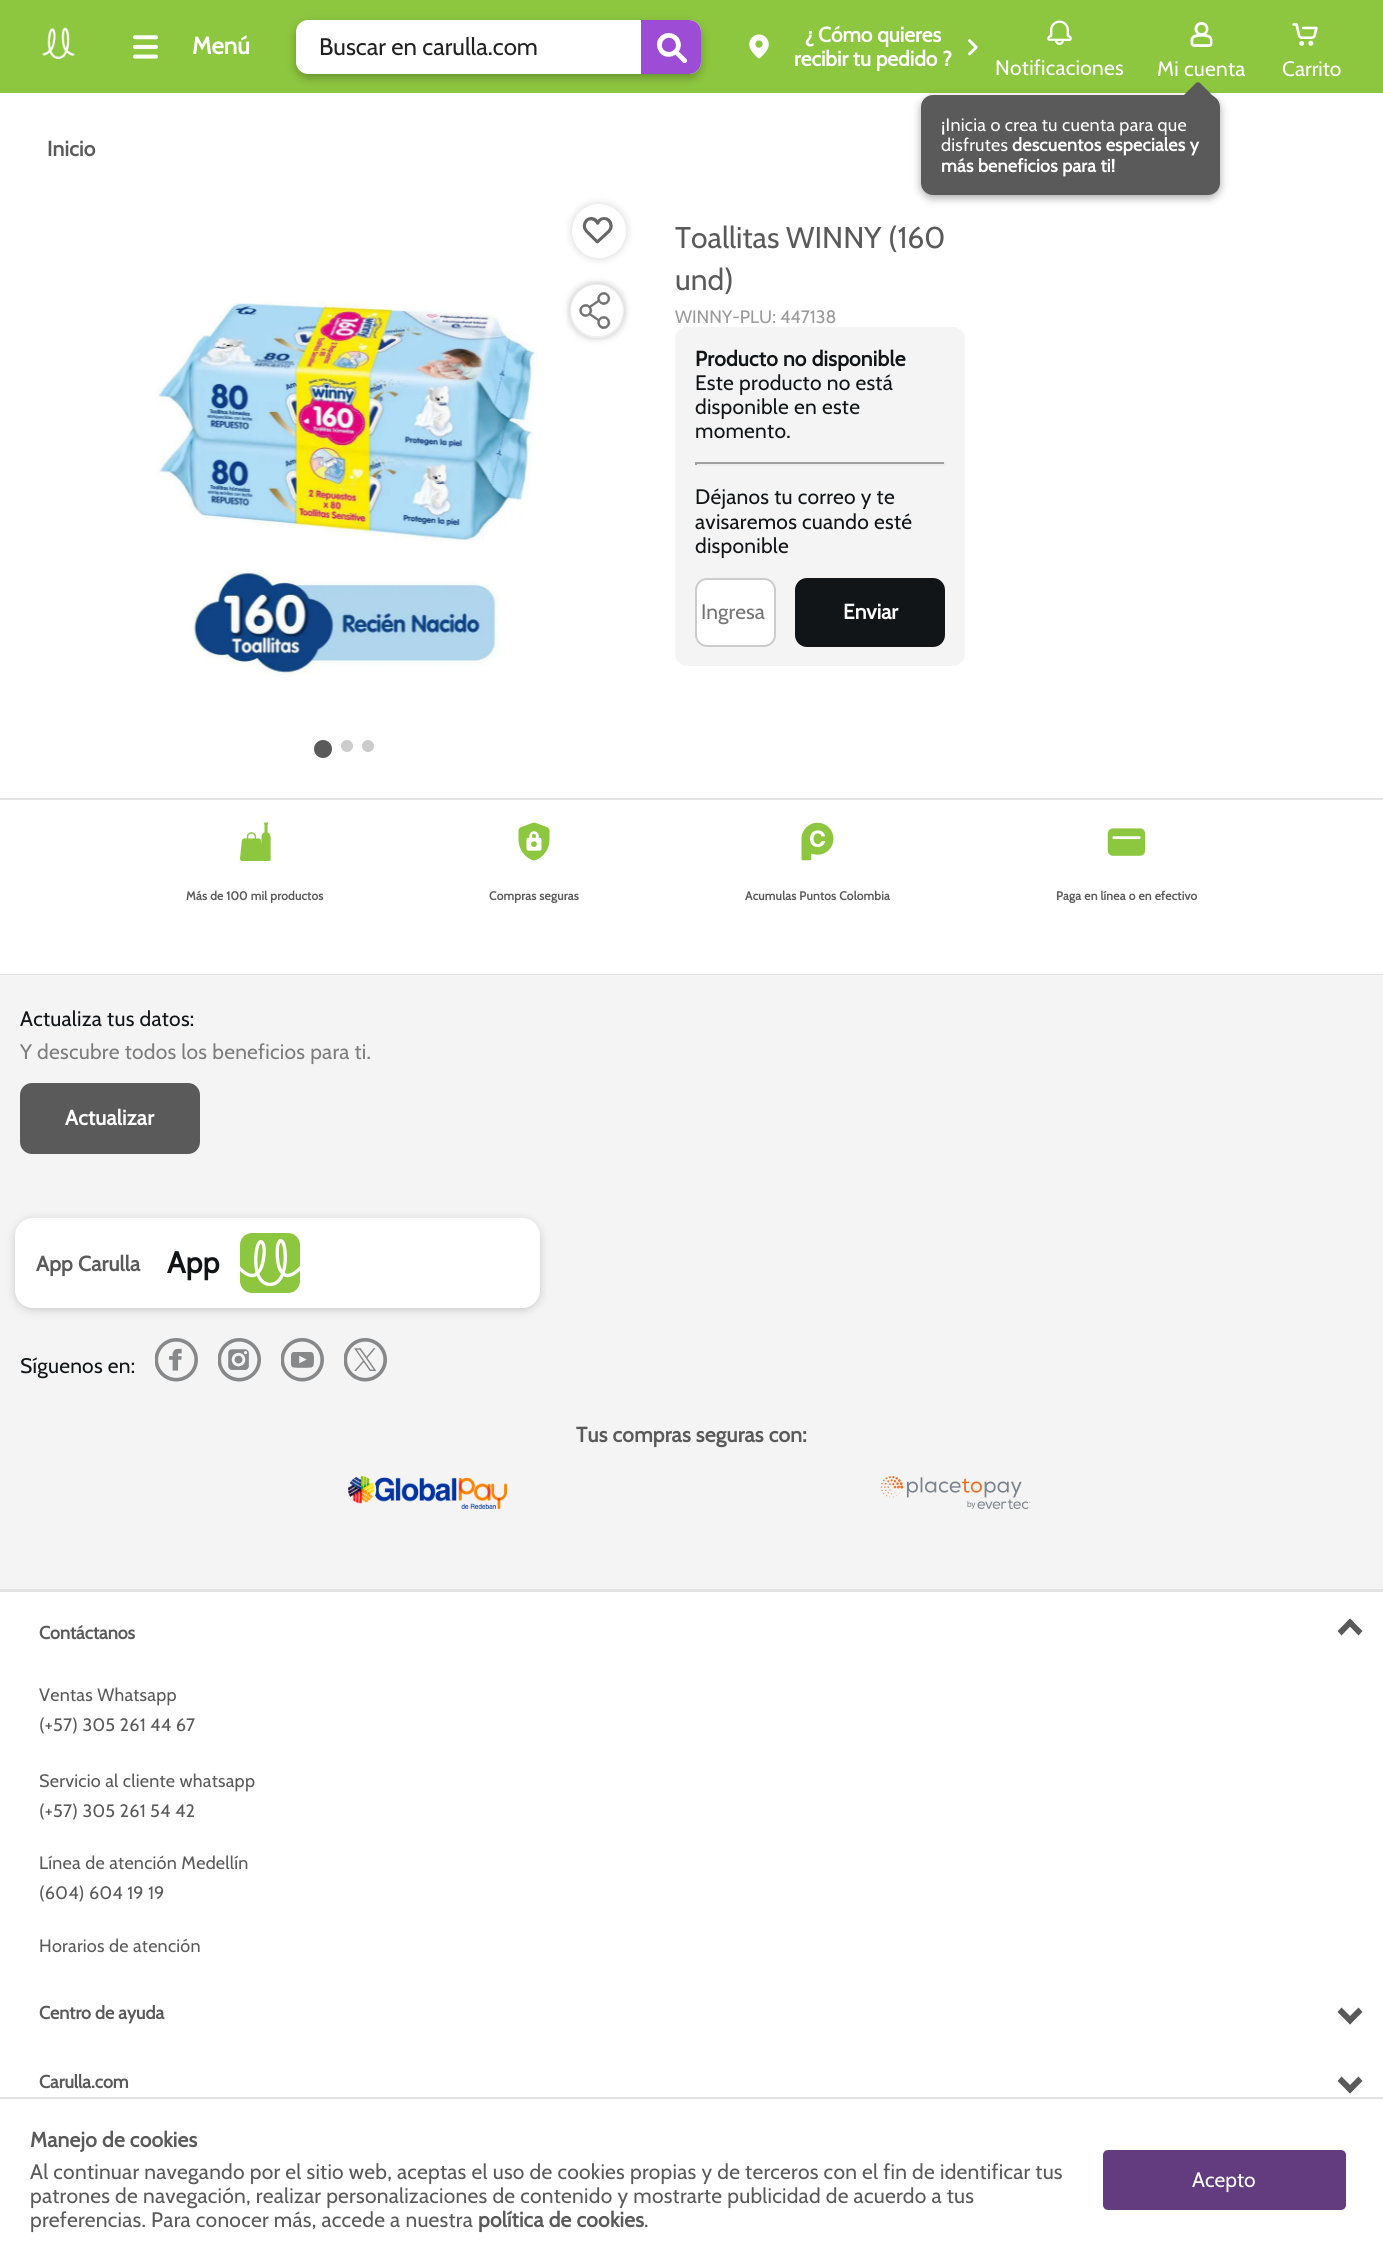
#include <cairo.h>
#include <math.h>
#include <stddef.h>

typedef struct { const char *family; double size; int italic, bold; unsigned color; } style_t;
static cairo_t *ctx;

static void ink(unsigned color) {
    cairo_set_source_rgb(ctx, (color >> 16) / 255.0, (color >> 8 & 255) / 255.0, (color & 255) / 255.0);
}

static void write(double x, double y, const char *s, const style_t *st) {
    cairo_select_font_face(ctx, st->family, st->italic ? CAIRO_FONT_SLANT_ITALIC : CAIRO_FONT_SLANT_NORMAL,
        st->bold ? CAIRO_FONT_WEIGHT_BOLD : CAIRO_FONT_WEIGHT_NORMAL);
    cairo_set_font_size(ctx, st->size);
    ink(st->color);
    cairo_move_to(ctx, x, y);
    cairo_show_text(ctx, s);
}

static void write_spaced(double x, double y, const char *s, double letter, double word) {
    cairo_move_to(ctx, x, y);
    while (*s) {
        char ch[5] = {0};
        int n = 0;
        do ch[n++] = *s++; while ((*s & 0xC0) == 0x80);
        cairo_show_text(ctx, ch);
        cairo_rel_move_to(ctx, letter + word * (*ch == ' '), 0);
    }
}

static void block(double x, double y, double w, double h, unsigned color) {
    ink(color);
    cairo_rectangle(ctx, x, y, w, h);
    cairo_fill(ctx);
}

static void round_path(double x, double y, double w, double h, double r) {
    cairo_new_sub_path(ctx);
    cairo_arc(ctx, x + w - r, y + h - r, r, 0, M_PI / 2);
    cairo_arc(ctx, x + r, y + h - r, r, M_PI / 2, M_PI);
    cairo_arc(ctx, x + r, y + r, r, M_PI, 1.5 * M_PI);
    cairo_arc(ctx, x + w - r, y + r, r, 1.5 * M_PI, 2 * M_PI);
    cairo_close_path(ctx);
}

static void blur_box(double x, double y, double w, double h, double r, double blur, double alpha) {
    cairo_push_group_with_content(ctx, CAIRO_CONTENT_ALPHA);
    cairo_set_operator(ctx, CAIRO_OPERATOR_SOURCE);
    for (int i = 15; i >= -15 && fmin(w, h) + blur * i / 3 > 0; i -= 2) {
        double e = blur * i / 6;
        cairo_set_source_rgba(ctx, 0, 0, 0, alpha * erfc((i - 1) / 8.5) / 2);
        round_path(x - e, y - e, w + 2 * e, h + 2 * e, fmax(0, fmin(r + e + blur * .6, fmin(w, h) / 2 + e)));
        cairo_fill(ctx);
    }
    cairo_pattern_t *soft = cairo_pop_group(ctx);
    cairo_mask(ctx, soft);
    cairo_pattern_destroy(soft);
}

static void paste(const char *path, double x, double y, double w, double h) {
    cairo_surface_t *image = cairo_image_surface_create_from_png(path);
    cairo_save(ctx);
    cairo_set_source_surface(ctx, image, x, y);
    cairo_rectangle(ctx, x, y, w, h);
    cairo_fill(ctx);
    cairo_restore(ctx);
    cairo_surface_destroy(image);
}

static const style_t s1 = {"Cabin", 24, 0, 1, 0xffffff};
static const style_t s2 = {"Cabin", 24, 0, 0, 0x222222};
static const style_t s3 = {"Cabin", 21, 0, 1, 0xffffff};
static const style_t s4 = {"Cabin", 21, 0, 0, 0xffffff};
static const style_t s5 = {"Cabin", 30, 0, 0, 0x5a5a5a};
static const style_t s6 = {"Cabin", 18, 0, 0, 0x9a9a9a};
static const style_t s7 = {"Cabin", 21, 0, 0, 0x757575};
static const style_t s8 = {"Cabin", 18, 0, 1, 0x5a5a5a};

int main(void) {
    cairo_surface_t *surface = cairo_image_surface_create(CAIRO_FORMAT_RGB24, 1383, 2261);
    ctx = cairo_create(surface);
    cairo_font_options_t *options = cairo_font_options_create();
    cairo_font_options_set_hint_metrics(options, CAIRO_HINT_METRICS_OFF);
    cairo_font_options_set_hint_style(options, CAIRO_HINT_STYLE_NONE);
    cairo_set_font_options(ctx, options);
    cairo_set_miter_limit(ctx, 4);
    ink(0xffffff);
    cairo_paint(ctx);
    block(0, 0, 1383, 93, 0x8dc63f);
    paste("pic1.png", 42, 27, 33, 32);
    paste("pic2.png", 133, 35, 25, 24);
    write(192, 54, "Menú", &s1);
    round_path(296, 20, 405, 54, 12);
    cairo_fill(ctx);
    cairo_save(ctx);
    cairo_set_fill_rule(ctx, CAIRO_FILL_RULE_EVEN_ODD);
    cairo_new_path(ctx);
    cairo_move_to(ctx, 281, 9);
    cairo_line_to(ctx, 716, 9);
    cairo_line_to(ctx, 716, 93);
    cairo_line_to(ctx, 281, 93);
    cairo_close_path(ctx);
    cairo_move_to(ctx, 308, 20);
    cairo_line_to(ctx, 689, 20);
    cairo_curve_to(ctx, 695.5, 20, 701, 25.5, 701, 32);
    cairo_line_to(ctx, 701, 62);
    cairo_curve_to(ctx, 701, 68.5, 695.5, 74, 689, 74);
    cairo_line_to(ctx, 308, 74);
    cairo_curve_to(ctx, 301.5, 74, 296, 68.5, 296, 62);
    cairo_line_to(ctx, 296, 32);
    cairo_curve_to(ctx, 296, 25.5, 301.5, 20, 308, 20);
    cairo_close_path(ctx);
    cairo_clip(ctx);
    ink(0x000000);
    blur_box(296, 24, 405, 54, 12, 4.5, 0.26);
    cairo_restore(ctx);
    write(319, 55, "Buscar en carulla.com", &s2);
    ink(0x9c4cd5);
    cairo_new_path(ctx);
    cairo_move_to(ctx, 641, 20);
    cairo_line_to(ctx, 689, 20);
    cairo_curve_to(ctx, 695.5, 20, 701, 25.5, 701, 32);
    cairo_line_to(ctx, 701, 62);
    cairo_curve_to(ctx, 701, 68.5, 695.5, 74, 689, 74);
    cairo_line_to(ctx, 641, 74);
    cairo_close_path(ctx);
    cairo_fill(ctx);
    paste("pic3.png", 657, 33, 30, 30);
    paste("pic4.png", 749, 34, 20, 25);
    write(805, 42, "¿ Cómo quieres", &s3);
    write(794, 66, "recibir tu pedido ?", &s3);
    paste("pic5.png", 968, 39, 10, 17);
    paste("pic6.png", 1047, 20, 25, 25);
    cairo_select_font_face(ctx, "Cabin", CAIRO_FONT_SLANT_NORMAL, CAIRO_FONT_WEIGHT_NORMAL);
    write_spaced(995, 75, "Notificaciones", 0.24, 0);
    paste("pic7.png", 1190, 22, 23, 25);
    write_spaced(1157, 76, "Mi cuenta", 0.24, 0);
    ink(0x000000);
    blur_box(921, 98, 299, 100, 12, 4.5, 0.34);
    ink(0x5a5a5a);
    round_path(921, 95, 299, 100, 12);
    cairo_fill(ctx);
    cairo_set_font_size(ctx, 18);
    ink(0xffffff);
    write_spaced(941, 131, "¡Inicia o crea tu cuenta para que", 0.24, 0);
    ink(0x5a5a5a);
    cairo_new_path(ctx);
    cairo_move_to(ctx, 1200, 83);
    cairo_line_to(ctx, 1217, 100);
    cairo_curve_to(ctx, 1218, 101, 1218, 103, 1217, 104);
    cairo_line_to(ctx, 1200, 121);
    cairo_curve_to(ctx, 1199, 122, 1197, 122, 1196, 121);
    cairo_line_to(ctx, 1179, 104);
    cairo_curve_to(ctx, 1178, 103, 1178, 101, 1179, 100);
    cairo_line_to(ctx, 1196, 83);
    cairo_curve_to(ctx, 1197, 82, 1199, 82, 1200, 83);
    cairo_close_path(ctx);
    cairo_fill(ctx);
    ink(0xffffff);
    write_spaced(941, 151, "disfrutes", 0.24, 0);
    cairo_select_font_face(ctx, "Cabin", CAIRO_FONT_SLANT_NORMAL, CAIRO_FONT_WEIGHT_BOLD);
    write_spaced(1012, 151, "descuentos especiales y", 0.24, 0);
    write_spaced(941, 172, "más beneficios para ti!", 0.24, 0);
    paste("pic8.png", 1292, 23, 26, 23);
    write(1282, 76, "Carrito", &s4);
    cairo_select_font_face(ctx, "Cabin", CAIRO_FONT_SLANT_NORMAL, CAIRO_FONT_WEIGHT_BOLD);
    ink(0x5a5a5a);
    write_spaced(47, 156, "Inicio", 0.24, 0);
    ink(0x000000);
    blur_box(572, 204, 54, 54, 27, 4.5, 0.16);
    ink(0xffffff);
    cairo_arc(ctx, 599, 231, 27, 0, 2 * M_PI);
    cairo_fill(ctx);
    paste("pic9.png", 582, 217, 31, 27);
    paste("pic10.png", 156, 300, 382, 377);
    ink(0x5a5a5a);
    cairo_arc(ctx, 323, 749, 9, 0, 2 * M_PI);
    cairo_fill(ctx);
    ink(0xcccccc);
    cairo_arc(ctx, 347, 746, 6, 0, 2 * M_PI);
    cairo_fill(ctx);
    cairo_arc(ctx, 368, 746, 6, 0, 2 * M_PI);
    cairo_fill(ctx);
    ink(0x000000);
    blur_box(570, 284, 54, 54, 27, 4.5, 0.16);
    ink(0xffffff);
    cairo_arc(ctx, 597, 311, 27, 0, 2 * M_PI);
    cairo_fill(ctx);
    paste("pic11.png", 567, 281, 60, 59);
    write(675, 248, "Toallitas WINNY (160", &s5);
    write(675, 290, "und)", &s5);
    write(675, 323, "WINNY-PLU: 447138", &s6);
    ink(0xf4f4f4);
    round_path(675, 327, 290, 339, 12);
    cairo_fill(ctx);
    cairo_select_font_face(ctx, "Cabin", CAIRO_FONT_SLANT_NORMAL, CAIRO_FONT_WEIGHT_BOLD);
    cairo_set_font_size(ctx, 21);
    ink(0x111517);
    write_spaced(695, 366, "Producto no disponible", 0.24, 0);
    cairo_select_font_face(ctx, "Cabin", CAIRO_FONT_SLANT_NORMAL, CAIRO_FONT_WEIGHT_NORMAL);
    write_spaced(695, 390, "Este producto no está", 0.24, 0);
    write_spaced(695, 414, "disponible en este", 0.24, 0);
    write_spaced(695, 438, "momento.", 0.24, 0);
    block(695, 462, 250, 2, 0x9f9f9f);
    block(944, 462, 2, 3, 0xeeeeee);
    block(695, 464, 250, 2, 0xeeeeee);
    block(695, 462, 2, 3, 0x9f9f9f);
    ink(0x111517);
    write_spaced(695, 504, "Déjanos tu correo y te", 0.24, 0);
    write_spaced(695, 529, "avisaremos cuando esté", 0.24, 0);
    write_spaced(695, 553, "disponible", 0.24, 0);
    ink(0xffffff);
    round_path(696, 579, 79, 67, 11);
    cairo_fill_preserve(ctx);
    ink(0xcccccc);
    cairo_stroke(ctx);
    write(701, 619, "Ingresa", &s7);
    ink(0x111517);
    round_path(795, 578, 150, 69, 12);
    cairo_fill(ctx);
    write(843, 619, "Enviar", &s3);
    block(0, 798, 1383, 2, 0xe3e3e3);
    block(0, 974, 1383, 1, 0xe3e3e3);
    paste("pic12.png", 240, 822, 31, 39);
    cairo_set_font_size(ctx, 12);
    ink(0x5a5a5a);
    write_spaced(186, 900, "Más de 100 mil productos", 0.24, 0);
    paste("pic13.png", 518, 822, 32, 39);
    write_spaced(489, 900, "Compras seguras", 0.24, 0);
    paste("pic14.png", 801, 822, 33, 39);
    write_spaced(745, 900, "Acumulas Puntos Colombia", 0.24, 0);
    paste("pic15.png", 1107, 828, 39, 28);
    write_spaced(1056, 900, "Paga en línea o en efectivo", 0.24, 0);
    block(0, 975, 1383, 614, 0xf4f4f4);
    cairo_select_font_face(ctx, "Cabin", CAIRO_FONT_SLANT_NORMAL, CAIRO_FONT_WEIGHT_NORMAL);
    cairo_set_font_size(ctx, 21);
    ink(0x111517);
    write_spaced(20, 1026, "Actualiza tus datos:", 0.24, 0);
    ink(0x7d7d7d);
    write_spaced(20, 1059, "Y descubre todos los beneficios para ti.", 0.24, 0);
    ink(0x5a5a5a);
    round_path(20, 1083, 180, 71, 12);
    cairo_fill(ctx);
    cairo_select_font_face(ctx, "Cabin", CAIRO_FONT_SLANT_NORMAL, CAIRO_FONT_WEIGHT_BOLD);
    ink(0xffffff);
    write_spaced(65, 1125, "Actualizar", 0.24, 0);
    ink(0x2e2e2e);
    blur_box(15, 1220, 525, 90, 18, 4.5, 0.22);
    ink(0xffffff);
    round_path(15, 1218, 525, 90, 18);
    cairo_fill(ctx);
    ink(0x5a5a5a);
    write_spaced(36, 1271, "App Carulla", 0.24, 0);
    cairo_set_font_size(ctx, 30);
    ink(0x111517);
    write_spaced(167, 1273, "App", 0.24, 0);
    paste("pic16.png", 240, 1233, 60, 60);
    cairo_select_font_face(ctx, "Cabin", CAIRO_FONT_SLANT_NORMAL, CAIRO_FONT_WEIGHT_NORMAL);
    cairo_set_font_size(ctx, 21);
    write_spaced(20, 1373, "Síguenos en:", 0.24, 0);
    paste("pic17.png", 155, 1338, 43, 44);
    paste("pic18.png", 218, 1338, 43, 44);
    paste("pic19.png", 281, 1338, 43, 44);
    paste("pic20.png", 344, 1338, 43, 44);
    cairo_select_font_face(ctx, "Cabin", CAIRO_FONT_SLANT_NORMAL, CAIRO_FONT_WEIGHT_BOLD);
    ink(0x5a5a5a);
    write_spaced(576, 1442, "Tus compras seguras con:", 0.24, 0);
    paste("pic21.png", 348, 1476, 159, 33);
    paste("pic22.png", 880, 1476, 151, 33);
    block(0, 1589, 1383, 3, 0xe3e3e3);
    write(39, 1639, "Contáctanos", &s8);
    cairo_new_path(ctx);
    cairo_move_to(ctx, 1350, 1618.5);
    cairo_line_to(ctx, 1362.5, 1631);
    cairo_line_to(ctx, 1358.5, 1635.5);
    cairo_line_to(ctx, 1346, 1622.5);
    cairo_close_path(ctx);
    cairo_fill(ctx);
    cairo_new_path(ctx);
    cairo_move_to(ctx, 1350, 1618.5);
    cairo_line_to(ctx, 1354, 1622.5);
    cairo_line_to(ctx, 1341.5, 1635.5);
    cairo_line_to(ctx, 1337.5, 1631);
    cairo_close_path(ctx);
    cairo_fill(ctx);
    cairo_select_font_face(ctx, "Cabin", CAIRO_FONT_SLANT_NORMAL, CAIRO_FONT_WEIGHT_NORMAL);
    write_spaced(39, 1701, "Ventas Whatsapp", 0.24, 0);
    write_spaced(39, 1731, "(+57) 305 261 44 67", 0.24, 0);
    write_spaced(39, 1787, "Servicio al cliente whatsapp", 0.24, 0);
    write_spaced(39, 1817, "(+57) 305 261 54 42", 0.24, 0);
    write_spaced(39, 1869, "Línea de atención Medellín", 0.24, 0);
    write_spaced(39, 1899, "(604) 604 19 19", 0.24, 0);
    write_spaced(39, 1952, "Horarios de atención", 0.24, 0);
    write(39, 2019, "Centro de ayuda", &s8);
    cairo_new_path(ctx);
    cairo_move_to(ctx, 1350, 2024.5);
    cairo_line_to(ctx, 1337.5, 2012);
    cairo_line_to(ctx, 1341.5, 2007.5);
    cairo_line_to(ctx, 1354, 2020);
    cairo_close_path(ctx);
    cairo_fill(ctx);
    cairo_new_path(ctx);
    cairo_move_to(ctx, 1350, 2024.5);
    cairo_line_to(ctx, 1346, 2020);
    cairo_line_to(ctx, 1358.5, 2007.5);
    cairo_line_to(ctx, 1362.5, 2012);
    cairo_close_path(ctx);
    cairo_fill(ctx);
    write(39, 2088, "Carulla.com", &s8);
    cairo_new_path(ctx);
    cairo_move_to(ctx, 1350, 2093.5);
    cairo_line_to(ctx, 1337.5, 2081);
    cairo_line_to(ctx, 1341.5, 2076.5);
    cairo_line_to(ctx, 1354, 2089);
    cairo_close_path(ctx);
    cairo_fill(ctx);
    cairo_new_path(ctx);
    cairo_move_to(ctx, 1350, 2093.5);
    cairo_line_to(ctx, 1346, 2089);
    cairo_line_to(ctx, 1358.5, 2076.5);
    cairo_line_to(ctx, 1362.5, 2081);
    cairo_close_path(ctx);
    cairo_fill(ctx);
    block(0, 2097, 1383, 2, 0xe3e3e3);
    cairo_set_font_size(ctx, 21);
    ink(0x5a5a5a);
    write_spaced(30, 2147, "Manejo de cookies", 0.24, 0);
    cairo_select_font_face(ctx, "Cabin", CAIRO_FONT_SLANT_NORMAL, CAIRO_FONT_WEIGHT_NORMAL);
    write_spaced(30, 2179, "Al continuar navegando por el sitio web, aceptas el uso de cookies propias y de terceros con el fin de identificar tus", 0.24, 0);
    write_spaced(30, 2203, "patrones de navegación, realizar personalizaciones de contenido y mostrarte publicidad de acuerdo a tus", 0.24, 0);
    write_spaced(30, 2227, "preferencias. Para conocer más, accede a nuestra", 0.24, 0);
    cairo_select_font_face(ctx, "Cabin", CAIRO_FONT_SLANT_NORMAL, CAIRO_FONT_WEIGHT_BOLD);
    write_spaced(478, 2227, "política de cookies", 0.24, 0);
    cairo_select_font_face(ctx, "Cabin", CAIRO_FONT_SLANT_NORMAL, CAIRO_FONT_WEIGHT_NORMAL);
    write_spaced(644, 2227, ".", 0.24, 0);
    ink(0x633b7f);
    round_path(1103, 2150, 243, 60, 5);
    cairo_fill(ctx);
    write(1192, 2187, "Acepto", &s4);
    cairo_surface_write_to_png(surface, "screenshot.png");
    cairo_font_options_destroy(options);
    cairo_destroy(ctx);
    cairo_surface_destroy(surface);
    return 0;
}
